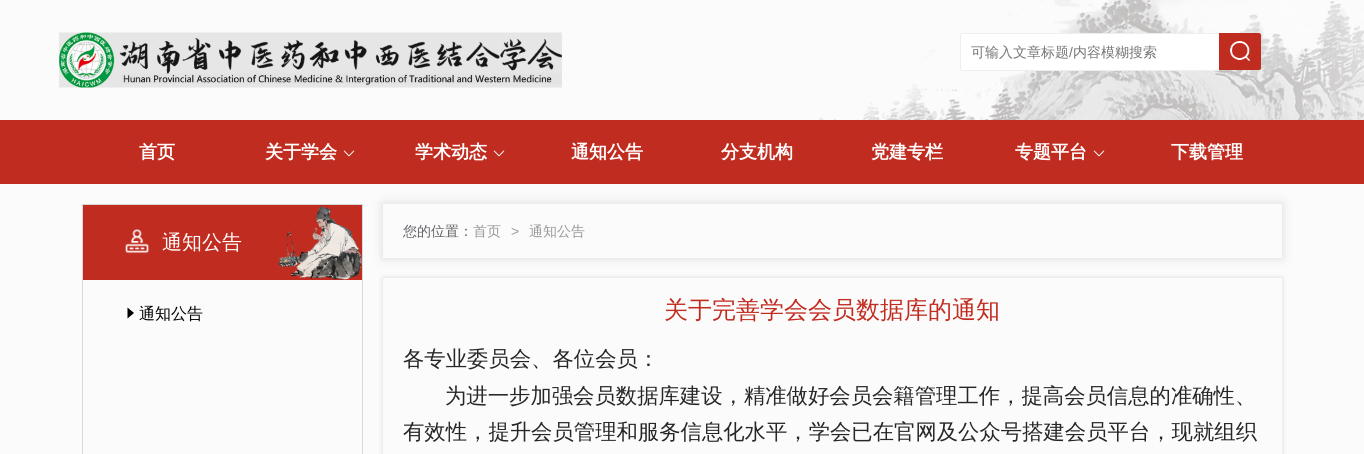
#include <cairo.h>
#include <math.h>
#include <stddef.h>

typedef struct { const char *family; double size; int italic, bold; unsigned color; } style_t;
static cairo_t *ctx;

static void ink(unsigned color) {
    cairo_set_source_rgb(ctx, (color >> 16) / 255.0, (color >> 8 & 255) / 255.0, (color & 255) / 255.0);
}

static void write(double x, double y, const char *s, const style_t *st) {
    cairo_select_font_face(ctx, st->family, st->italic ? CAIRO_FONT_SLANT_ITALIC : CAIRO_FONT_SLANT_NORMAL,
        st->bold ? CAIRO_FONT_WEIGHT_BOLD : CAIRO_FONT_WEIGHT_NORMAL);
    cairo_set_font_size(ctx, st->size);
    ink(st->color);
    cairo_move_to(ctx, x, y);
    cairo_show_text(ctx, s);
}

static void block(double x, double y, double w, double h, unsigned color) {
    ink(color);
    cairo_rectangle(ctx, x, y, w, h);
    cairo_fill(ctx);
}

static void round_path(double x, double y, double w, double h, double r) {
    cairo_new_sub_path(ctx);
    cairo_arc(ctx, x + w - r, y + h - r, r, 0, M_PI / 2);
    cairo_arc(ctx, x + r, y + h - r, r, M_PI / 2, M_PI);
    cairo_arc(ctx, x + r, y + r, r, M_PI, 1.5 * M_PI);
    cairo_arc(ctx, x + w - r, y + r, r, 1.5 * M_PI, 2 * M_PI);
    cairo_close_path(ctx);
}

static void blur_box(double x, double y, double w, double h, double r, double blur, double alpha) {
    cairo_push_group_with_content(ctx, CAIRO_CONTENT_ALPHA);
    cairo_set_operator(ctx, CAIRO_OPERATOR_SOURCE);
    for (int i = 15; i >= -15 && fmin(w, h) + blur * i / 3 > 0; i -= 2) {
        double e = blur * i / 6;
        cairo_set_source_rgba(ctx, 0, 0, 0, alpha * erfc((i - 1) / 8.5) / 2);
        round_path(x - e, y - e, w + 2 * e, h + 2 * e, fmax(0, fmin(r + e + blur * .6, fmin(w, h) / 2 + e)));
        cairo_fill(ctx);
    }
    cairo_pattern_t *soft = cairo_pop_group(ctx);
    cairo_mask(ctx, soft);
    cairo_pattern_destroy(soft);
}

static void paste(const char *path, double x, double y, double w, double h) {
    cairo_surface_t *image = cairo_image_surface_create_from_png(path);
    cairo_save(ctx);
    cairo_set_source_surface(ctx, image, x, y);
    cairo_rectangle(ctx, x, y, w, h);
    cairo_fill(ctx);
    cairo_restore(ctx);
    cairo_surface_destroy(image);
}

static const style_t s1 = {"WenQuanYi Zen Hei Medium", 14, 0, 0, 0x757575};
static const style_t s2 = {"Liberation Sans", 14, 0, 0, 0x757575};
static const style_t s3 = {"WenQuanYi Zen Hei", 18, 0, 1, 0xffffff};
static const style_t s4 = {"WenQuanYi Zen Hei Medium", 20, 0, 0, 0xffffff};
static const style_t s5 = {"WenQuanYi Zen Hei Medium", 16, 0, 0, 0x000000};
static const style_t s6 = {"WenQuanYi Zen Hei Medium", 14, 0, 0, 0x606266};
static const style_t s7 = {"WenQuanYi Zen Hei Medium", 14, 0, 0, 0x999999};
static const style_t s8 = {"Liberation Sans", 14, 0, 0, 0x999999};
static const style_t s9 = {"WenQuanYi Zen Hei Medium", 24, 0, 0, 0xc12c20};
static const style_t s10 = {"WenQuanYi Zen Hei Medium", 21.35, 0, 0, 0x262626};

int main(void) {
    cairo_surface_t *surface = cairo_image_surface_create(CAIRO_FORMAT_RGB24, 1364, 454);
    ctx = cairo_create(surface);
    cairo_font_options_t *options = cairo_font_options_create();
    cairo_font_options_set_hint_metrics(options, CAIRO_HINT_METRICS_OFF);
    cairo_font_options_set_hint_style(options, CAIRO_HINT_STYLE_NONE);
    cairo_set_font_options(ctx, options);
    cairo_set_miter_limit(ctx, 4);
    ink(0xfbfbfb);
    cairo_paint(ctx);
    paste("pic1.png", 819, 0, 545, 120);
    paste("pic2.png", 59, 32, 503, 56);
    ink(0xffffff);
    round_path(960.5, 33.5, 259, 37, 1.5);
    cairo_fill_preserve(ctx);
    ink(0xeeeeee);
    cairo_set_line_width(ctx, 1);
    cairo_stroke(ctx);
    write(971, 57, "可输入文章标题", &s1);
    write(1069, 57, "/", &s2);
    write(1073, 57, "内容模糊搜索", &s1);
    ink(0xc12c20);
    cairo_new_path(ctx);
    cairo_move_to(ctx, 1219, 33);
    cairo_line_to(ctx, 1259, 33);
    cairo_curve_to(ctx, 1260, 33, 1261, 34, 1261, 35);
    cairo_line_to(ctx, 1261, 68);
    cairo_curve_to(ctx, 1261, 69, 1260, 70, 1259, 70);
    cairo_line_to(ctx, 1219, 70);
    cairo_close_path(ctx);
    cairo_fill(ctx);
    paste("pic3.png", 1230, 41, 20, 20);
    block(0, 120, 1364, 64, 0xc12c20);
    write(139, 158, "首页", &s3);
    write(265, 158, "关于学会", &s3);
    paste("pic4.png", 343, 150, 12, 7);
    write(415, 158, "学术动态", &s3);
    paste("pic4.png", 493, 150, 12, 7);
    write(571, 158, "通知公告", &s3);
    write(721, 158, "分支机构", &s3);
    write(871, 158, "党建专栏", &s3);
    write(1015, 158, "专题平台", &s3);
    paste("pic4.png", 1093, 150, 12, 7);
    write(1171, 158, "下载管理", &s3);
    cairo_rectangle(ctx, 82.5, 204.5, 280, 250);
    ink(0xd9d9d9);
    cairo_stroke(ctx);
    block(83, 205, 279, 75, 0xc12c20);
    paste("pic5.png", 278, 205, 84, 75);
    paste("pic6.png", 125, 229, 24, 25);
    write(162, 249, "通知公告", &s4);
    ink(0x000000);
    cairo_new_path(ctx);
    cairo_move_to(ctx, 127.5, 307.5);
    cairo_line_to(ctx, 134, 313);
    cairo_line_to(ctx, 127.5, 318.5);
    cairo_close_path(ctx);
    cairo_fill(ctx);
    write(139, 319, "通知公告", &s5);
    cairo_save(ctx);
    cairo_set_fill_rule(ctx, CAIRO_FILL_RULE_EVEN_ODD);
    cairo_new_path(ctx);
    cairo_move_to(ctx, 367, 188);
    cairo_line_to(ctx, 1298, 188);
    cairo_line_to(ctx, 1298, 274);
    cairo_line_to(ctx, 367, 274);
    cairo_close_path(ctx);
    cairo_move_to(ctx, 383, 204);
    cairo_line_to(ctx, 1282, 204);
    cairo_line_to(ctx, 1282, 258);
    cairo_line_to(ctx, 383, 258);
    cairo_close_path(ctx);
    cairo_clip(ctx);
    ink(0xd9d9d9);
    blur_box(383, 204, 899, 54, 0, 5, 1);
    cairo_restore(ctx);
    write(403, 236, "您的位置：", &s6);
    write(473, 236, "首页", &s7);
    write(511, 236, ">", &s8);
    write(529, 236, "通知公告", &s7);
    cairo_save(ctx);
    cairo_set_fill_rule(ctx, CAIRO_FILL_RULE_EVEN_ODD);
    cairo_new_path(ctx);
    cairo_move_to(ctx, 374, 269);
    cairo_line_to(ctx, 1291, 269);
    cairo_line_to(ctx, 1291, 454);
    cairo_line_to(ctx, 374, 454);
    cairo_close_path(ctx);
    cairo_move_to(ctx, 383, 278);
    cairo_line_to(ctx, 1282, 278);
    cairo_line_to(ctx, 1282, 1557);
    cairo_line_to(ctx, 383, 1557);
    cairo_close_path(ctx);
    cairo_clip(ctx);
    ink(0xd9d9d9);
    blur_box(383, 278, 899, 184, 0, 2.5, 1);
    cairo_restore(ctx);
    write(664, 318, "关于完善学会会员数据库的通知", &s9);
    write(403, 366, "各专业委员会、各位会员：", &s10);
    write(445, 403, "为进一步加强会员数据库建设，精准做好会员会籍管理工作，提高会员信息的准确性、", &s10);
    write(403, 439, "有效性，提升会员管理和服务信息化水平，学会已在官网及公众号搭建会员平台，现就组织", &s10);
    cairo_surface_write_to_png(surface, "screenshot.png");
    cairo_font_options_destroy(options);
    cairo_destroy(ctx);
    cairo_surface_destroy(surface);
    return 0;
}
